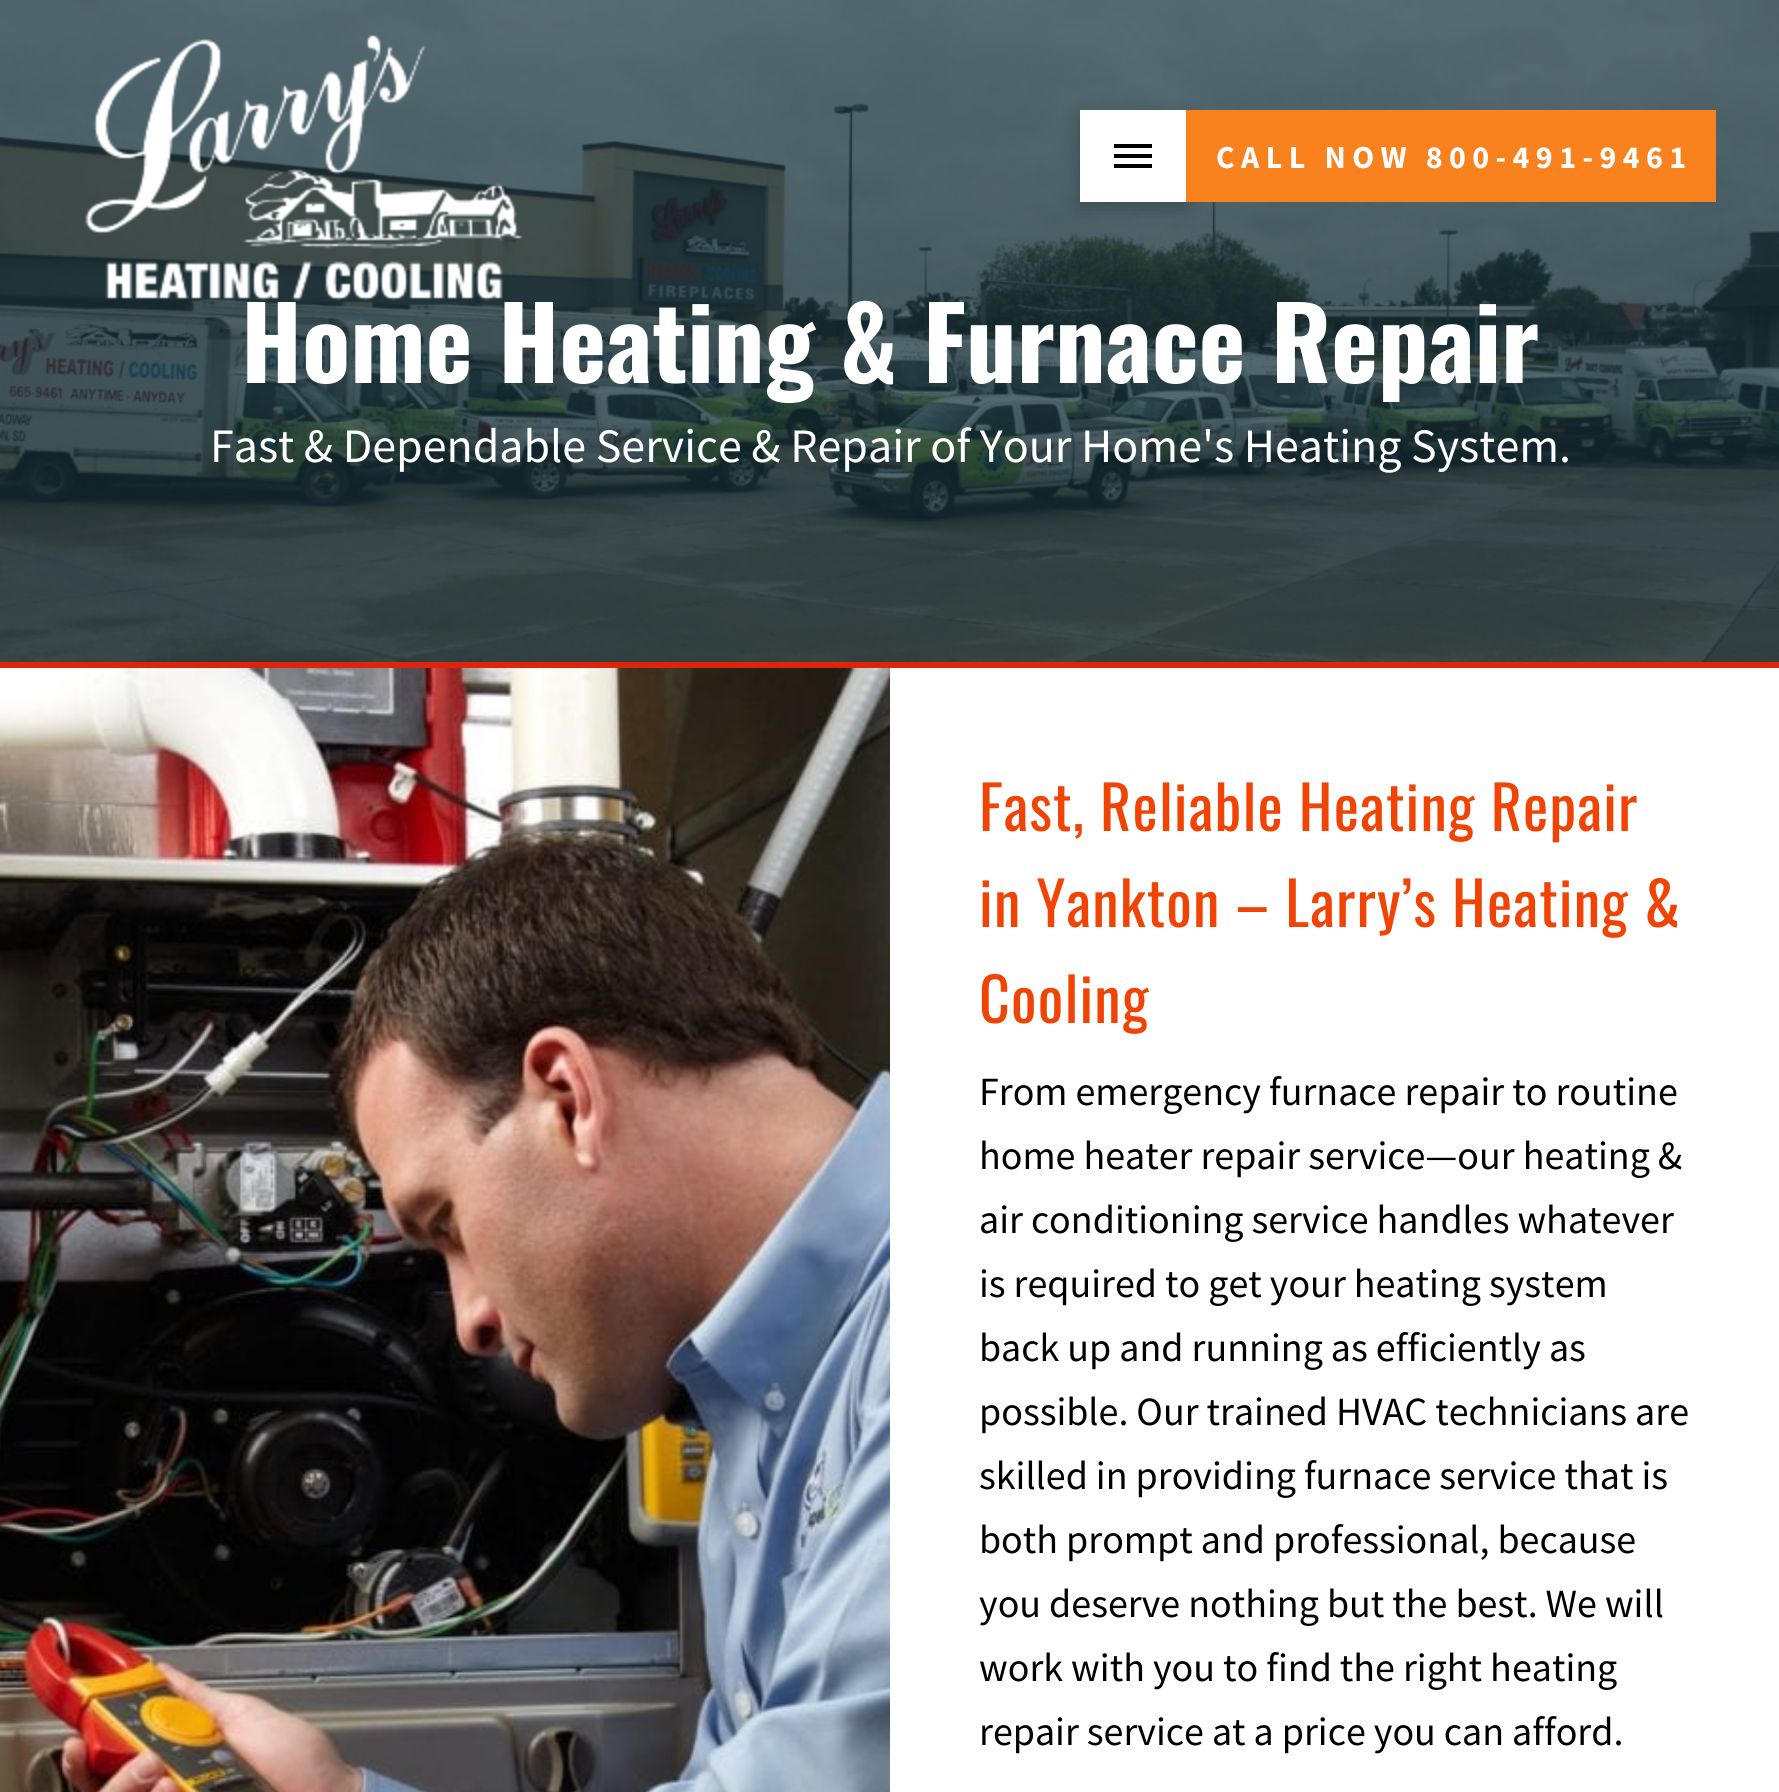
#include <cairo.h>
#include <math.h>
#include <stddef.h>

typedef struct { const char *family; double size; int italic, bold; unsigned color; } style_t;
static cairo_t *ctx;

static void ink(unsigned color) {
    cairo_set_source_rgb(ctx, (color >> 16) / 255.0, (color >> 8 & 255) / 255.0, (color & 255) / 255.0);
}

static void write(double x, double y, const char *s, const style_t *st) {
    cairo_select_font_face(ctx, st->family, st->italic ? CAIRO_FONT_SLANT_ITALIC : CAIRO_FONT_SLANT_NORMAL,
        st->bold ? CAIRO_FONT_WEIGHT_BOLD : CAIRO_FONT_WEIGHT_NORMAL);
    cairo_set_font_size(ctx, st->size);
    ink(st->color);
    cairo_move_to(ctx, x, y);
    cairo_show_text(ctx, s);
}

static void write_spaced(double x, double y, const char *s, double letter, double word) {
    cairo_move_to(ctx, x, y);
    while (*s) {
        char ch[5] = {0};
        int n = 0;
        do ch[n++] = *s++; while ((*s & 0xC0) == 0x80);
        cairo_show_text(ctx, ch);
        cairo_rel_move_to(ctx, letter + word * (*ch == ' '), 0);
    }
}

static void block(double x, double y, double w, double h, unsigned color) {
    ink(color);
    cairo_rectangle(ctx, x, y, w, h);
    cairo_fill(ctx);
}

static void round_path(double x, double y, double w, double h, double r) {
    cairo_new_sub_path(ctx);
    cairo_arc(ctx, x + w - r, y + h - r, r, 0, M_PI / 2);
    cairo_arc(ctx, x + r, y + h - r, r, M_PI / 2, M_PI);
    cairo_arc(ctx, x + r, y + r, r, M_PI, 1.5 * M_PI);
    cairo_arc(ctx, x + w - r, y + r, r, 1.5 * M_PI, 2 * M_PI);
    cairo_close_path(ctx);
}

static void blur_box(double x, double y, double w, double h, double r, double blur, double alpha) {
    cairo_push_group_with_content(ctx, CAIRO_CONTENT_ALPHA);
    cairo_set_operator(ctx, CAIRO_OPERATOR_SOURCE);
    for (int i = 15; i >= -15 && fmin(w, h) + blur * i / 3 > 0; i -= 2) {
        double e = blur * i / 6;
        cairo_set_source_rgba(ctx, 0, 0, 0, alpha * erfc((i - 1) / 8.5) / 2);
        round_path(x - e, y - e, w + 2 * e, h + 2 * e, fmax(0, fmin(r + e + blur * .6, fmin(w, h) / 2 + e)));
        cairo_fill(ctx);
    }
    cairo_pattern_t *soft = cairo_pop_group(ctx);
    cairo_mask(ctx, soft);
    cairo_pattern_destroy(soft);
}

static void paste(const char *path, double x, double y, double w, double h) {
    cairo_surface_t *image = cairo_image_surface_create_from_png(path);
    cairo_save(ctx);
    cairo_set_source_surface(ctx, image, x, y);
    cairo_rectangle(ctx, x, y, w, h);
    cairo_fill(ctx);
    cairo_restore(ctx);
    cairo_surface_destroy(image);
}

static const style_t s1 = {"Oswald", 100, 0, 1, 0xffffff};
static const style_t s2 = {"Source Sans Pro", 48, 0, 0, 0xffffff};
static const style_t s3 = {"Source Sans Pro", 40, 0, 0, 0x000000};

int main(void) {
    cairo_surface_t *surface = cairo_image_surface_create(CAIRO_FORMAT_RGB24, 1779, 1792);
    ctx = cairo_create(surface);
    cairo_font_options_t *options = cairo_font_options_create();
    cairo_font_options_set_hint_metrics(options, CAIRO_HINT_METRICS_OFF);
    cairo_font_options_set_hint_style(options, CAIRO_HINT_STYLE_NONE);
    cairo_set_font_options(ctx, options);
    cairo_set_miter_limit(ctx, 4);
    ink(0xffffff);
    cairo_paint(ctx);
    paste("pic2.png", 0, 0, 1779, 662);
    write(241, 383, "Home Heating & Furnace Repair", &s1);
    paste("pic1.png", 85, 35, 438, 266);
    ink(0x000000);
    blur_box(1080, 114, 106, 92, 0, 10.5, 0.25);
    block(1080, 110, 106, 92, 0xffffff);
    block(1114, 144, 38, 4, 0x000000);
    block(1114, 154, 38, 4, 0x000000);
    block(1114, 164, 38, 4, 0x000000);
    block(1186, 110, 530, 92, 0xf9821f);
    cairo_select_font_face(ctx, "Source Sans Pro", CAIRO_FONT_SLANT_NORMAL, CAIRO_FONT_WEIGHT_BOLD);
    cairo_set_font_size(ctx, 32);
    ink(0xffffff);
    write_spaced(1216, 168, "CALL NOW 800-491-9461", 6.4, 0);
    block(0, 662, 1779, 6, 0xdf240c);
    write(210, 462, "Fast & Dependable Service & Repair of Your Home's Heating System.", &s2);
    paste("pic3.png", 0, 668, 890, 1124);
    cairo_select_font_face(ctx, "Oswald", CAIRO_FONT_SLANT_NORMAL, CAIRO_FONT_WEIGHT_NORMAL);
    cairo_set_font_size(ctx, 60);
    ink(0xf14404);
    write_spaced(979, 831, "Fast, Reliable Heating Repair", 1.2, 0);
    write_spaced(979, 927, "in Yankton – Larry’s Heating &", 1.2, 0);
    write_spaced(979, 1023, "Cooling", 1.2, 0);
    write(979, 1105, "From emergency furnace repair to routine", &s3);
    write(979, 1169, "home heater repair service—our heating &", &s3);
    write(979, 1233, "air conditioning service handles whatever", &s3);
    write(979, 1297, "is required to get your heating system", &s3);
    write(979, 1361, "back up and running as efficiently as", &s3);
    write(979, 1425, "possible. Our trained HVAC technicians are", &s3);
    write(979, 1489, "skilled in providing furnace service that is", &s3);
    write(979, 1553, "both prompt and professional, because", &s3);
    write(979, 1617, "you deserve nothing but the best. We will", &s3);
    write(979, 1681, "work with you to find the right heating", &s3);
    write(979, 1745, "repair service at a price you can afford.", &s3);
    cairo_surface_write_to_png(surface, "screenshot.png");
    cairo_font_options_destroy(options);
    cairo_destroy(ctx);
    cairo_surface_destroy(surface);
    return 0;
}
